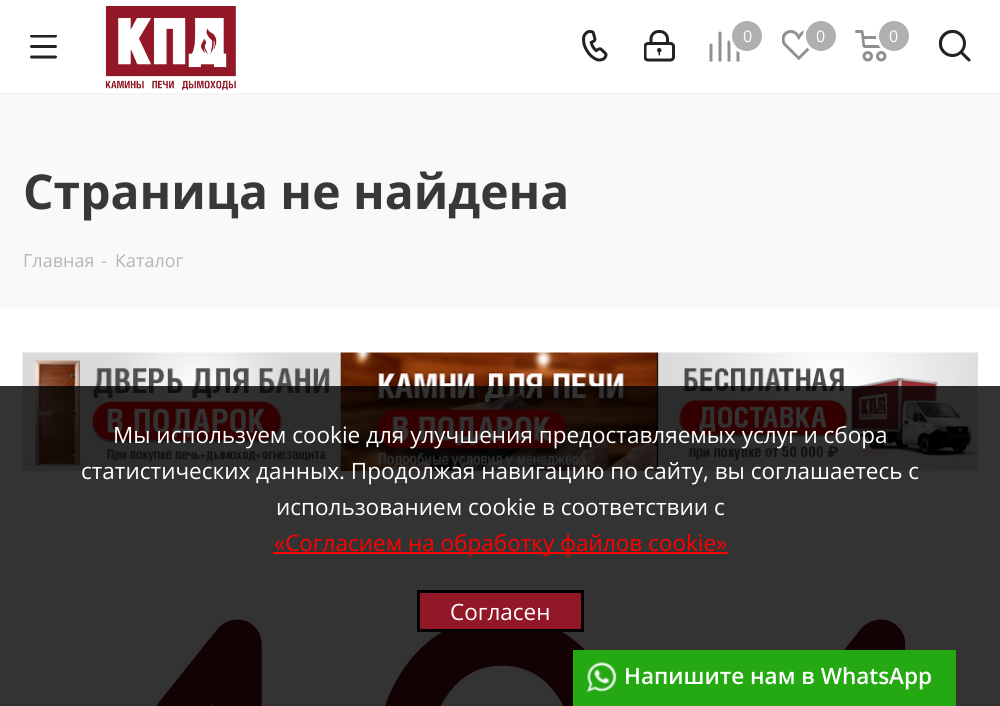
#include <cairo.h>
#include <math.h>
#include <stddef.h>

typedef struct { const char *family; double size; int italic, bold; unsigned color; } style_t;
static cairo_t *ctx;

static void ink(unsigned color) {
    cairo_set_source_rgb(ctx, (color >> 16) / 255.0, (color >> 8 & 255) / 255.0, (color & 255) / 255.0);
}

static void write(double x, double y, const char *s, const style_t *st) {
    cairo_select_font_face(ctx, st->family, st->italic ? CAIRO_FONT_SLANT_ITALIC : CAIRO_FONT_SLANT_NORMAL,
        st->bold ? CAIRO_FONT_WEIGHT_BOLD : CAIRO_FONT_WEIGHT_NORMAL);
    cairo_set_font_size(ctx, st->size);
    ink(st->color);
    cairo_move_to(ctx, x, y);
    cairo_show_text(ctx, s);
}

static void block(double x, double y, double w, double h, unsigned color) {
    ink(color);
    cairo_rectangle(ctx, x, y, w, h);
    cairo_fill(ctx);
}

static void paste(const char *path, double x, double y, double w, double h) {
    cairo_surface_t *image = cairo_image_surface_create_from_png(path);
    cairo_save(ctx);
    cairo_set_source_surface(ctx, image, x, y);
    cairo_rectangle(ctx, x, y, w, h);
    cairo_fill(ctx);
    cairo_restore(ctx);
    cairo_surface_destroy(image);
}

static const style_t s1 = {"Open Sans", 16, 0, 0, 0xffffff};
static const style_t s2 = {"Open Sans", 48, 0, 1, 0x383838};
static const style_t s3 = {"Open Sans", 18, 0, 0, 0xb6b5b5};
static const style_t s4 = {"Open Sans", 22.5, 0, 0, 0xffffff};
static const style_t s5 = {"Open Sans", 22.5, 0, 0, 0xff0000};
static const style_t s6 = {"Open Sans SemiBold", 22.5, 0, 0, 0xffffff};

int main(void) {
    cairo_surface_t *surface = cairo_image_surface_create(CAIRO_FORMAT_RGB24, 1000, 706);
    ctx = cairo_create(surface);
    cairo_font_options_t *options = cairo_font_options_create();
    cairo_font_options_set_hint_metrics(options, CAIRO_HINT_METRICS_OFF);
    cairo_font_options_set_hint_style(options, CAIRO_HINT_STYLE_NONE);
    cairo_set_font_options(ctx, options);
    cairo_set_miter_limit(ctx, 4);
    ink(0xffffff);
    cairo_paint(ctx);
    block(0, 93, 1000, 2, 0xf5f5f5);
    paste("pic1.png", 30, 35, 27, 24);
    paste("pic2.png", 87, 6, 168, 84);
    paste("pic3.png", 582, 30, 26, 32);
    paste("pic4.png", 644, 30, 31, 32);
    paste("pic5.png", 709, 31, 31, 31);
    cairo_arc(ctx, 747, 36, 16.5, 0, 2 * M_PI);
    ink(0xffffff);
    cairo_set_line_width(ctx, 3);
    cairo_stroke(ctx);
    ink(0xb0b0b0);
    cairo_arc(ctx, 747, 36, 15, 0, 2 * M_PI);
    cairo_fill(ctx);
    write(743, 42, "0", &s1);
    paste("pic6.png", 782, 30, 30, 30);
    cairo_arc(ctx, 821, 36, 16.5, 0, 2 * M_PI);
    cairo_stroke(ctx);
    ink(0xb0b0b0);
    cairo_arc(ctx, 821, 36, 15, 0, 2 * M_PI);
    cairo_fill(ctx);
    write(816, 42, "0", &s1);
    paste("pic7.png", 855, 30, 32, 32);
    cairo_arc(ctx, 894, 36, 16.5, 0, 2 * M_PI);
    cairo_stroke(ctx);
    ink(0xb0b0b0);
    cairo_arc(ctx, 894, 36, 15, 0, 2 * M_PI);
    cairo_fill(ctx);
    write(889, 42, "0", &s1);
    paste("pic8.png", 939, 30, 32, 32);
    block(0, 95, 1000, 213, 0xf9f9f9);
    write(23, 209, "Страница не найдена", &s2);
    write(23, 267, "Главная", &s3);
    write(101, 267, "-", &s3);
    write(115, 267, "Каталог", &s3);
    paste("pic9.png", 22, 352, 956, 119);
    paste("pic10.png", 156, 619, 750, 87);
    cairo_set_source_rgba(ctx, 0, 0, 0, 0.8);
    cairo_rectangle(ctx, 0, 386, 1000, 320);
    cairo_fill(ctx);
    write(113, 443, "Мы используем cookie для улучшения предоставляемых услуг и сбора", &s4);
    write(81, 479, "статистических данных. Продолжая навигацию по сайту, вы соглашаетесь с", &s4);
    write(276, 515, "использованием cookie в соответствии с", &s4);
    block(273, 552, 455, 2, 0xff0000);
    write(274, 551, "«Согласием на обработку файлов cookie»", &s5);
    ink(0x931827);
    cairo_rectangle(ctx, 418.5, 591.5, 164, 39);
    cairo_fill_preserve(ctx);
    ink(0x000000);
    cairo_stroke(ctx);
    write(450, 620, "Согласен", &s4);
    block(573, 650, 383, 56, 0x24a913);
    paste("pic11.png", 586, 662, 31, 31);
    write(624, 684, "Напишите нам в WhatsApp", &s6);
    cairo_surface_write_to_png(surface, "screenshot.png");
    cairo_font_options_destroy(options);
    cairo_destroy(ctx);
    cairo_surface_destroy(surface);
    return 0;
}
